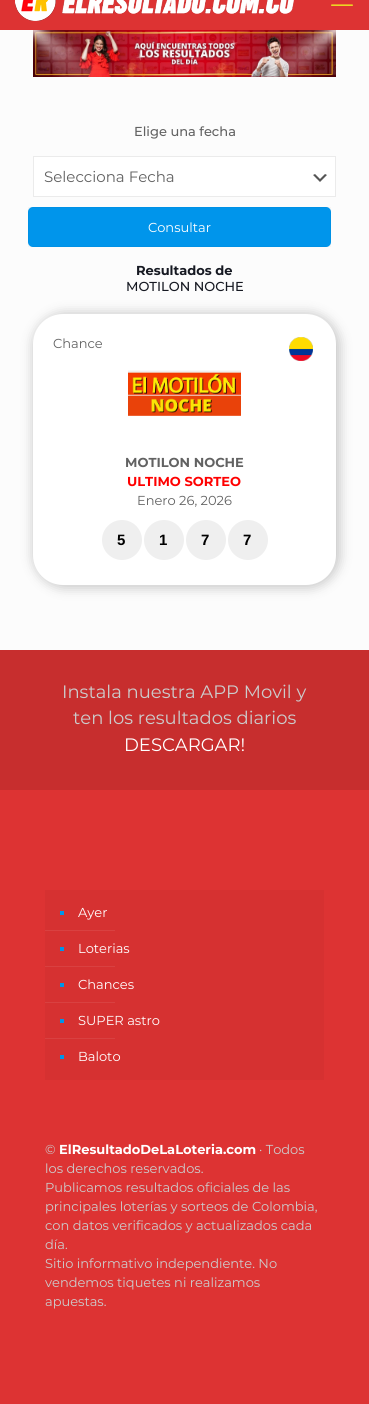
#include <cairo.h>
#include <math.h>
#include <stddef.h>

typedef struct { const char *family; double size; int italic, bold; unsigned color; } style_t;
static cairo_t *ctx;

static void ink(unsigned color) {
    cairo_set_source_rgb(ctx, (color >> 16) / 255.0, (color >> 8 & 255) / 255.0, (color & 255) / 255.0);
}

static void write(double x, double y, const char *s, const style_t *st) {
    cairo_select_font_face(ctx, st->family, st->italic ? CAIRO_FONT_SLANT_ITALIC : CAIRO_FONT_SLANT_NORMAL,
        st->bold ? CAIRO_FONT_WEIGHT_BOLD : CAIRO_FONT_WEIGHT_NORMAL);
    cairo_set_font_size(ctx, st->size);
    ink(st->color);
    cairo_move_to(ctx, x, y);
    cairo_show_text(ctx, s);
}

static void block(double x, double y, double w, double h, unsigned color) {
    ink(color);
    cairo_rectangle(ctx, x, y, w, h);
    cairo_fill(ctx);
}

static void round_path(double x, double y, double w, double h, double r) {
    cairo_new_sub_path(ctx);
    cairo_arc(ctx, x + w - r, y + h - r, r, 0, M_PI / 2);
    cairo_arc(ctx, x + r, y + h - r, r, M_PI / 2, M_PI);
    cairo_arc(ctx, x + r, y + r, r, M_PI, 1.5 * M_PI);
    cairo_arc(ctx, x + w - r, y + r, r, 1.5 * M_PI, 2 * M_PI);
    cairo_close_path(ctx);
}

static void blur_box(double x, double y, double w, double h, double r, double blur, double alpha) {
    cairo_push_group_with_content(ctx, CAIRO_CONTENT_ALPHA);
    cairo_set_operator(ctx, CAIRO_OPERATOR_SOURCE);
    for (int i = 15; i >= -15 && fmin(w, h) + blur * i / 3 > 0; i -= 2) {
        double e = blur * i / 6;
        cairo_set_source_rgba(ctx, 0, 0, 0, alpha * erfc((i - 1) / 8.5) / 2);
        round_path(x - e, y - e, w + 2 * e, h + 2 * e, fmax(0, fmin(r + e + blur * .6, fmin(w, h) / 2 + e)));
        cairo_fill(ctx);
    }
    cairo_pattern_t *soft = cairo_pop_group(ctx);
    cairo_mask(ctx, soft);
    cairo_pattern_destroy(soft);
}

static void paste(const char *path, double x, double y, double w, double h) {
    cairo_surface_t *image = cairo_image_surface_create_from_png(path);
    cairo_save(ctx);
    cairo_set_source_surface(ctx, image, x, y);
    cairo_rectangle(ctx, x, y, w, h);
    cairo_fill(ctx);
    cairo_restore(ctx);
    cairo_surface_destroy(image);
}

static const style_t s1 = {"Montserrat Medium", 13, 0, 0, 0x626262};
static const style_t s2 = {"Montserrat", 15, 0, 0, 0x626262};
static const style_t s3 = {"Montserrat", 13, 0, 0, 0xffffff};
static const style_t s4 = {"Montserrat", 13, 0, 1, 0x161922};
static const style_t s5 = {"Montserrat Medium", 13, 0, 0, 0x161922};
static const style_t s6 = {"Montserrat", 13, 0, 0, 0x626262};
static const style_t s7 = {"Montserrat", 13, 0, 1, 0x626262};
static const style_t s8 = {"Montserrat", 13, 0, 1, 0xff0000};
static const style_t s9 = {"Liberation Sans", 15, 0, 1, 0x000000};
static const style_t s10 = {"Montserrat", 18, 0, 0, 0xcccccc};
static const style_t s11 = {"Montserrat", 18, 0, 0, 0xffffff};
static const style_t s12 = {"Montserrat", 13, 0, 0, 0xcccccc};
static const style_t s13 = {"Montserrat", 13, 0, 1, 0xffffff};

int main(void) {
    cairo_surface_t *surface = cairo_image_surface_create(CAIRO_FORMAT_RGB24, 369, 1404);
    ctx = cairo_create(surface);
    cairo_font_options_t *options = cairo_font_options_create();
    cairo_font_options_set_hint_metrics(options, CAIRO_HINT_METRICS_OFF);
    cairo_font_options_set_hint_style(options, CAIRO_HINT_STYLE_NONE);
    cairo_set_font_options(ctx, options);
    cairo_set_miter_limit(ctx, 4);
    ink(0xfcfcfc);
    cairo_paint(ctx);
    block(0, 0, 369, 30, 0xdd3333);
    paste("pic1.png", 15, 0, 279, 21);
    paste("pic2.png", 331, 4, 22, 2);
    paste("pic3.png", 33, 30, 303, 47);
    write(134, 136, "Elige una fecha", &s1);
    block(34, 157, 301, 39, 0xffffff);
    paste("pic4.png", 313, 174, 14, 8);
    cairo_rectangle(ctx, 33.5, 156.5, 302, 40);
    ink(0xebebeb);
    cairo_set_line_width(ctx, 1);
    cairo_stroke(ctx);
    write(44, 182, "Selecciona Fecha", &s2);
    ink(0x0095eb);
    round_path(28, 207, 303, 40, 5);
    cairo_fill(ctx);
    cairo_rectangle(ctx, 28.5, 207.5, 302, 39);
    cairo_set_source_rgba(ctx, 0, 0, 0, 0.03);
    cairo_stroke(ctx);
    write(148, 232, "Consultar", &s3);
    write(136, 275, "Resultados de", &s4);
    write(126, 291, "MOTILON NOCHE", &s5);
    ink(0x000000);
    blur_box(33, 313, 307, 275, 32, 6, 0.21);
    ink(0xffffff);
    round_path(33, 314, 303, 271, 30);
    cairo_fill(ctx);
    write(53, 348, "Chance", &s6);
    paste("pic5.png", 289, 337, 24, 24);
    paste("pic6.png", 128, 370, 113, 46);
    write(125, 467, "MOTILON NOCHE", &s7);
    write(127, 486, "ULTIMO SORTEO", &s8);
    write(137, 505, "Enero 26, 2026", &s6);
    ink(0xefefef);
    cairo_new_path(ctx);
    cairo_arc(ctx, 122, 540, 20, 0, 2 * M_PI);
    cairo_fill(ctx);
    write(117, 545, "5", &s9);
    ink(0xefefef);
    cairo_new_path(ctx);
    cairo_arc(ctx, 164, 540, 20, 0, 2 * M_PI);
    cairo_fill(ctx);
    write(159, 545, "1", &s9);
    ink(0xefefef);
    cairo_new_path(ctx);
    cairo_arc(ctx, 206, 540, 20, 0, 2 * M_PI);
    cairo_fill(ctx);
    write(201, 545, "7", &s9);
    ink(0xefefef);
    cairo_new_path(ctx);
    cairo_arc(ctx, 248, 540, 20, 0, 2 * M_PI);
    cairo_fill(ctx);
    write(243, 545, "7", &s9);
    block(0, 790, 369, 614, 0xdd3333);
    block(0, 650, 369, 140, 0xc72e2e);
    write(62, 698, "Instala nuestra APP Movil y", &s10);
    write(73, 724, "ten los resultados diarios", &s10);
    write(124, 751, "DESCARGAR!", &s11);
    block(45, 890, 279, 190, 0xd63131);
    block(60, 911, 4, 4, 0x0095eb);
    write(78, 917, "Ayer", &s3);
    block(45, 930, 70, 1, 0xd94141);
    block(60, 947, 4, 4, 0x0095eb);
    write(78, 953, "Loterias", &s3);
    block(45, 966, 70, 1, 0xd94141);
    block(60, 983, 4, 4, 0x0095eb);
    write(78, 989, "Chances", &s3);
    block(45, 1002, 70, 1, 0xd94141);
    block(60, 1019, 4, 4, 0x0095eb);
    write(78, 1025, "SUPER astro", &s3);
    block(45, 1038, 70, 1, 0xd94141);
    block(60, 1055, 4, 4, 0x0095eb);
    write(78, 1061, "Baloto", &s3);
    write(45, 1154, "©", &s12);
    write(59, 1154, "ElResultadoDeLaLoteria.com", &s13);
    write(259, 1154, "· Todos", &s12);
    write(45, 1173, "los derechos reservados.", &s12);
    write(45, 1192, "Publicamos resultados oficiales de las", &s12);
    write(45, 1211, "principales loterías y sorteos de Colombia,", &s12);
    write(45, 1230, "con datos verificados y actualizados cada", &s12);
    write(45, 1249, "día.", &s12);
    write(45, 1268, "Sitio informativo independiente. No", &s12);
    write(45, 1287, "vendemos tiquetes ni realizamos", &s12);
    write(45, 1306, "apuestas.", &s12);
    cairo_surface_write_to_png(surface, "screenshot.png");
    cairo_font_options_destroy(options);
    cairo_destroy(ctx);
    cairo_surface_destroy(surface);
    return 0;
}
